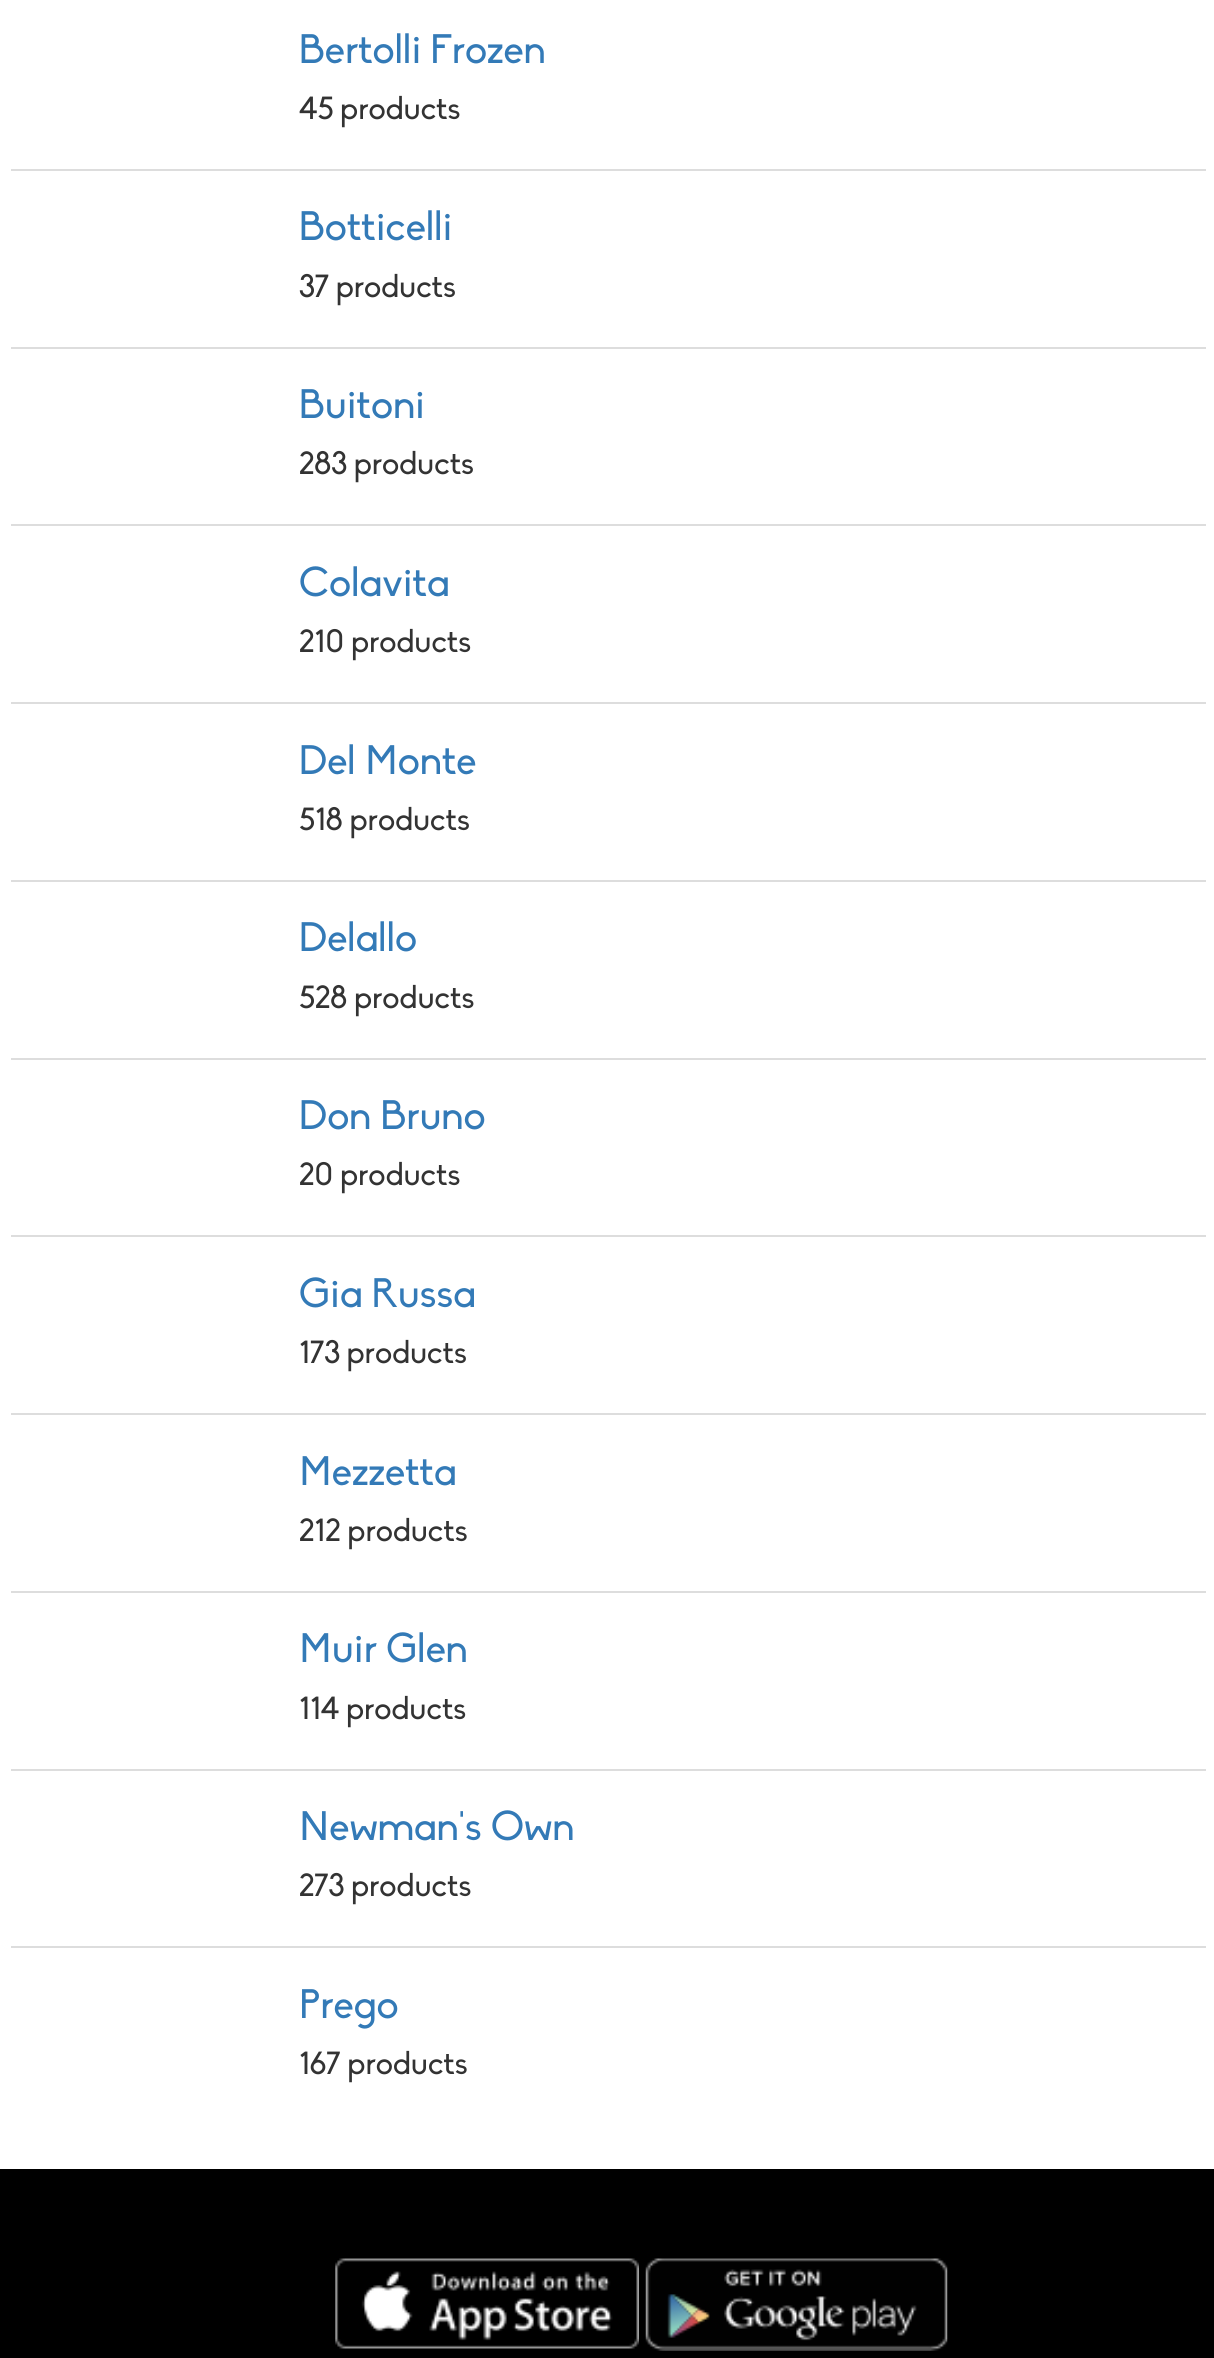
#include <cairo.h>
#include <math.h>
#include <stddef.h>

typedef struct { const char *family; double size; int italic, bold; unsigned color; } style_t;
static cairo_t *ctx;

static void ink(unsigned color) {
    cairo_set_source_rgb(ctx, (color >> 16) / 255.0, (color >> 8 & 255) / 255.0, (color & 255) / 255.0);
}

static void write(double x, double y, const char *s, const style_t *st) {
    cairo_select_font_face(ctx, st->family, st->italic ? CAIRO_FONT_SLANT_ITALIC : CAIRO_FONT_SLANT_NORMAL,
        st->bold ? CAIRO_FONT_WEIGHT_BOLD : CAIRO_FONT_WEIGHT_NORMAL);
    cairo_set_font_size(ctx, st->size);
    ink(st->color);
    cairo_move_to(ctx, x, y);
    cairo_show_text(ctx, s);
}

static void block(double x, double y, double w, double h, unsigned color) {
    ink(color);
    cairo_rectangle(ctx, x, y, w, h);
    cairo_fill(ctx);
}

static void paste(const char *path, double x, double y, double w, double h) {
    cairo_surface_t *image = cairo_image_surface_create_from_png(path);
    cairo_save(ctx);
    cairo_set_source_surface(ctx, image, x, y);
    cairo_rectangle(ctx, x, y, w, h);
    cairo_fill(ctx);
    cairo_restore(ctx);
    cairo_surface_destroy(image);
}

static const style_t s1 = {"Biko", 40.5, 0, 0, 0x337ab7};
static const style_t s2 = {"Biko", 31.5, 0, 0, 0x333333};

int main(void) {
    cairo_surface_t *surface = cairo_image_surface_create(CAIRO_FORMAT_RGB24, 1214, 2358);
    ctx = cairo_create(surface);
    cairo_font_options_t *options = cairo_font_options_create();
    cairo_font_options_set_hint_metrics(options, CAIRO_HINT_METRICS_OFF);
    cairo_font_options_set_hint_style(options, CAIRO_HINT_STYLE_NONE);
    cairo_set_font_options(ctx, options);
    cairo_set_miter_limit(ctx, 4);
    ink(0xffffff);
    cairo_paint(ctx);
    write(299, 63, "Bertolli Frozen", &s1);
    write(299, 119, "45 products", &s2);
    block(11, 169, 1195, 2, 0xdddddd);
    write(299, 240, "Botticelli", &s1);
    write(299, 297, "37 products", &s2);
    block(11, 347, 1195, 2, 0xdddddd);
    write(299, 418, "Buitoni", &s1);
    write(299, 474, "283 products", &s2);
    block(11, 524, 1195, 2, 0xdddddd);
    write(299, 596, "Colavita", &s1);
    write(299, 652, "210 products", &s2);
    block(11, 702, 1195, 2, 0xdddddd);
    write(299, 774, "Del Monte", &s1);
    write(299, 830, "518 products", &s2);
    block(11, 880, 1195, 2, 0xdddddd);
    write(299, 951, "Delallo", &s1);
    write(299, 1008, "528 products", &s2);
    block(11, 1058, 1195, 2, 0xdddddd);
    write(299, 1129, "Don Bruno", &s1);
    write(299, 1185, "20 products", &s2);
    block(11, 1235, 1195, 2, 0xdddddd);
    write(299, 1307, "Gia Russa", &s1);
    write(299, 1363, "173 products", &s2);
    block(11, 1413, 1195, 2, 0xdddddd);
    write(299, 1485, "Mezzetta", &s1);
    write(299, 1541, "212 products", &s2);
    block(11, 1591, 1195, 2, 0xdddddd);
    write(299, 1662, "Muir Glen", &s1);
    write(299, 1719, "114 products", &s2);
    block(11, 1769, 1195, 2, 0xdddddd);
    write(299, 1840, "Newman's Own", &s1);
    write(299, 1896, "273 products", &s2);
    block(11, 1946, 1195, 2, 0xdddddd);
    write(299, 2018, "Prego", &s1);
    write(299, 2074, "167 products", &s2);
    block(0, 2169, 1214, 189, 0x000000);
    paste("pic1.png", 335, 2258, 304, 91);
    paste("pic2.png", 645, 2258, 303, 93);
    cairo_surface_write_to_png(surface, "screenshot.png");
    cairo_font_options_destroy(options);
    cairo_destroy(ctx);
    cairo_surface_destroy(surface);
    return 0;
}
